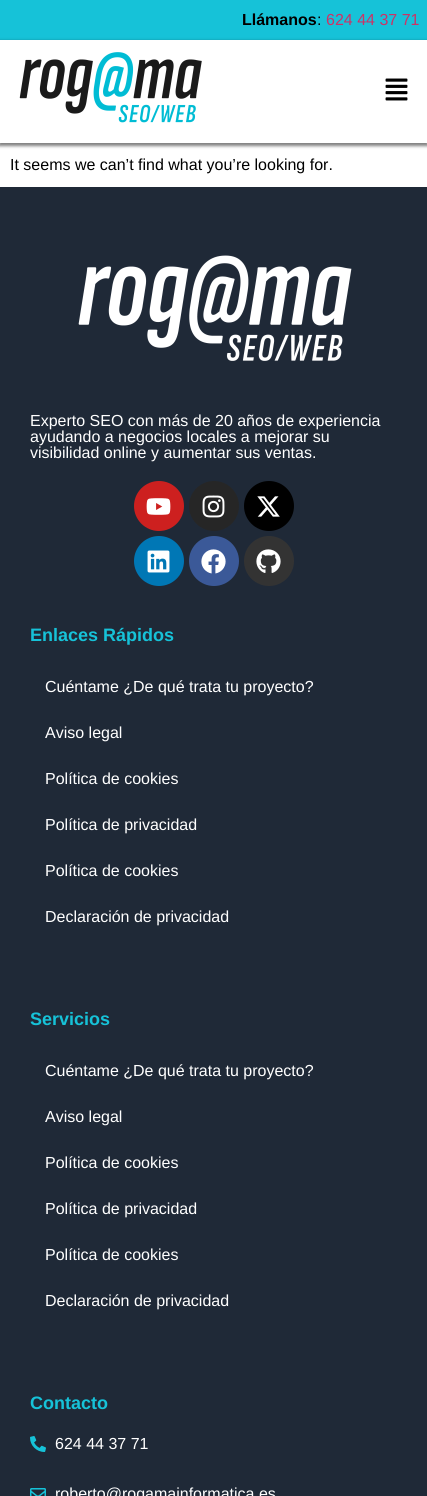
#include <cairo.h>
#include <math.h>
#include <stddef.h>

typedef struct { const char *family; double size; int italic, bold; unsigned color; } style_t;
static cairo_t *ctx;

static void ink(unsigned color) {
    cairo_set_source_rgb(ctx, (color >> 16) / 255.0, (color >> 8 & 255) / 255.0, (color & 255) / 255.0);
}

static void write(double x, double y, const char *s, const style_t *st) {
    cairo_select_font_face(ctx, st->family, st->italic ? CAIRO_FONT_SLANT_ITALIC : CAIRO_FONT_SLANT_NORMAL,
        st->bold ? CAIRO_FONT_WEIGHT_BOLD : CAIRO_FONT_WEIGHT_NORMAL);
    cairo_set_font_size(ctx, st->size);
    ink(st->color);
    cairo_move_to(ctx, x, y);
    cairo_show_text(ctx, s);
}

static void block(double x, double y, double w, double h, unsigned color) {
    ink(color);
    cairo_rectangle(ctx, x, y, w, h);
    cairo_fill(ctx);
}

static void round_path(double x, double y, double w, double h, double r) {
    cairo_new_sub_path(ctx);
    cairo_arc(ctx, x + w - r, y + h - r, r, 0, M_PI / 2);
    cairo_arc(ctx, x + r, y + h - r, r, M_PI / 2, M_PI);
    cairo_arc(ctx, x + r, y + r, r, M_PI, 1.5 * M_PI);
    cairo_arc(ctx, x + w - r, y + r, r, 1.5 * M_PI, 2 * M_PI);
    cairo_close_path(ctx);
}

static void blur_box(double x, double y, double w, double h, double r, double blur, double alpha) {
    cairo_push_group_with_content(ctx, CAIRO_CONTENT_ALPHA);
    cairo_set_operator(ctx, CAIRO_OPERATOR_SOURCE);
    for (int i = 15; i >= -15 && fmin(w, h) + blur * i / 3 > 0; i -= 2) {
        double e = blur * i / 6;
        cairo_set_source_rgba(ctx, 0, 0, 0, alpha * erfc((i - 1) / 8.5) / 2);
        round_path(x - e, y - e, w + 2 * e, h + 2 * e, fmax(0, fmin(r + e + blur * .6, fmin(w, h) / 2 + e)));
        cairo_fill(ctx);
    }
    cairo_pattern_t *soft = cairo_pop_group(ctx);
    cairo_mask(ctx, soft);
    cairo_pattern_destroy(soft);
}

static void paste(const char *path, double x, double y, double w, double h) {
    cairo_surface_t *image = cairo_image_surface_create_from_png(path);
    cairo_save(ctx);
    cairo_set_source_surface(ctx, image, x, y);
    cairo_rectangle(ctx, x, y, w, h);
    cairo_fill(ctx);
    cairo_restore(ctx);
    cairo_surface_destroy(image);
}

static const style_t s1 = {"Liberation Sans", 16, 0, 1, 0x000000};
static const style_t s2 = {"Liberation Sans", 16, 0, 0, 0x000000};
static const style_t s3 = {"Liberation Sans", 16, 0, 0, 0xcc3366};
static const style_t s4 = {"Liberation Sans", 16, 0, 0, 0xffffff};
static const style_t s5 = {"Liberation Sans", 18, 0, 1, 0x16c2d8};

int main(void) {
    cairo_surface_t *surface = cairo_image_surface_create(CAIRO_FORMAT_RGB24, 427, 1496);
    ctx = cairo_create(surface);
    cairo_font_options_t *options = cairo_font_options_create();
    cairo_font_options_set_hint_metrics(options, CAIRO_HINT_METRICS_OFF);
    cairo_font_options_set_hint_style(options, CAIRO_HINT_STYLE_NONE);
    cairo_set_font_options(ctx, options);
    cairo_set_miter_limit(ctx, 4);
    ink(0xffffff);
    cairo_paint(ctx);
    block(0, 0, 427, 40, 0x16c2d8);
    write(242, 25, "Llámanos", &s1);
    write(317, 25, ":", &s2);
    write(326, 25, "624 44 37 71", &s3);
    cairo_save(ctx);
    cairo_set_fill_rule(ctx, CAIRO_FILL_RULE_EVEN_ODD);
    cairo_new_path(ctx);
    cairo_move_to(ctx, 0, 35);
    cairo_line_to(ctx, 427, 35);
    cairo_line_to(ctx, 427, 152);
    cairo_line_to(ctx, 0, 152);
    cairo_close_path(ctx);
    cairo_move_to(ctx, 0, 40);
    cairo_line_to(ctx, 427, 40);
    cairo_line_to(ctx, 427, 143);
    cairo_line_to(ctx, 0, 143);
    cairo_close_path(ctx);
    cairo_clip(ctx);
    ink(0x000000);
    blur_box(-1, 41, 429, 105, 0, 1.5, 0.5);
    cairo_restore(ctx);
    paste("pic1.png", 19, 52, 183, 71);
    paste("pic2.png", 385, 78, 23, 23);
    write(10, 170, "It seems we can’t find what you’re looking for.", &s2);
    block(0, 187, 427, 1309, 0x1f2937);
    paste("pic3.png", 78, 255, 274, 106);
    write(30, 426, "Experto SEO con más de 20 años de experiencia", &s4);
    write(30, 442, "ayudando a negocios locales a mejorar su", &s4);
    write(30, 458, "visibilidad online y aumentar sus ventas.", &s4);
    ink(0xcd201f);
    cairo_new_path(ctx);
    cairo_arc(ctx, 159, 506, 25, 0, 2 * M_PI);
    cairo_fill(ctx);
    paste("pic4.png", 146, 498, 25, 17);
    ink(0x262626);
    cairo_arc(ctx, 214, 506, 25, 0, 2 * M_PI);
    cairo_fill(ctx);
    paste("pic5.png", 202, 495, 23, 23);
    ink(0x000000);
    cairo_arc(ctx, 269, 506, 25, 0, 2 * M_PI);
    cairo_fill(ctx);
    paste("pic6.png", 257, 496, 23, 21);
    ink(0x0077b5);
    cairo_arc(ctx, 159, 561, 25, 0, 2 * M_PI);
    cairo_fill(ctx);
    paste("pic7.png", 147, 550, 23, 23);
    ink(0x3b5998);
    cairo_arc(ctx, 214, 561, 25, 0, 2 * M_PI);
    cairo_fill(ctx);
    paste("pic8.png", 201, 549, 25, 25);
    ink(0x333333);
    cairo_arc(ctx, 269, 561, 25, 0, 2 * M_PI);
    cairo_fill(ctx);
    paste("pic9.png", 256, 549, 25, 24);
    write(30, 641, "Enlaces Rápidos", &s5);
    write(45, 692, "Cuéntame ¿De qué trata tu proyecto?", &s4);
    write(45, 738, "Aviso legal", &s4);
    write(45, 784, "Política de cookies", &s4);
    write(45, 830, "Política de privacidad", &s4);
    write(45, 876, "Política de cookies", &s4);
    write(45, 922, "Declaración de privacidad", &s4);
    write(30, 1025, "Servicios", &s5);
    write(45, 1076, "Cuéntame ¿De qué trata tu proyecto?", &s4);
    write(45, 1122, "Aviso legal", &s4);
    write(45, 1168, "Política de cookies", &s4);
    write(45, 1214, "Política de privacidad", &s4);
    write(45, 1260, "Política de cookies", &s4);
    write(45, 1306, "Declaración de privacidad", &s4);
    write(30, 1409, "Contacto", &s5);
    paste("pic10.png", 30, 1436, 16, 16);
    write(55, 1449, "624 44 37 71", &s4);
    paste("pic11.png", 30, 1488, 16, 8);
    write(55, 1499, "roberto@rogamainformatica.es", &s4);
    cairo_surface_write_to_png(surface, "screenshot.png");
    cairo_font_options_destroy(options);
    cairo_destroy(ctx);
    cairo_surface_destroy(surface);
    return 0;
}
